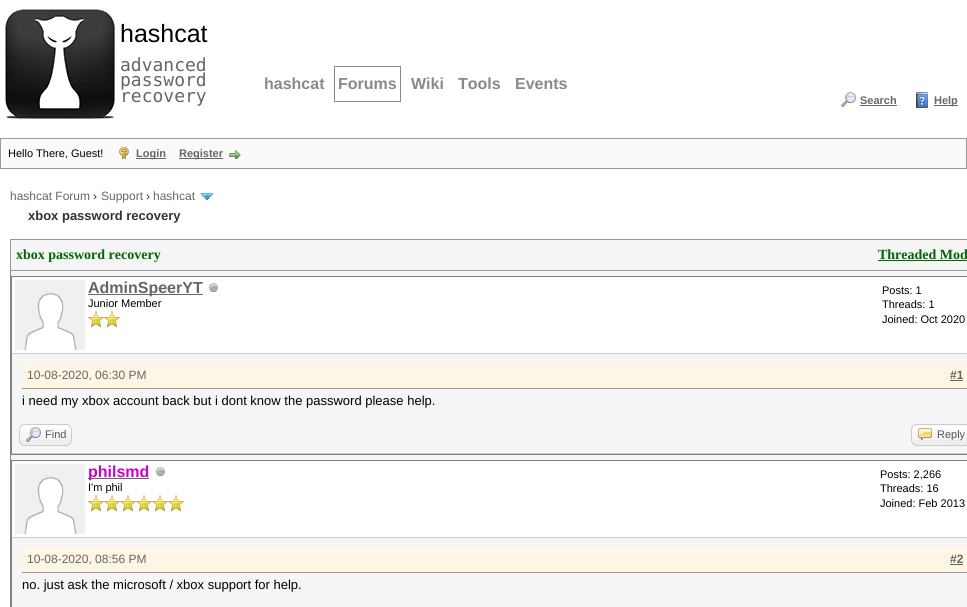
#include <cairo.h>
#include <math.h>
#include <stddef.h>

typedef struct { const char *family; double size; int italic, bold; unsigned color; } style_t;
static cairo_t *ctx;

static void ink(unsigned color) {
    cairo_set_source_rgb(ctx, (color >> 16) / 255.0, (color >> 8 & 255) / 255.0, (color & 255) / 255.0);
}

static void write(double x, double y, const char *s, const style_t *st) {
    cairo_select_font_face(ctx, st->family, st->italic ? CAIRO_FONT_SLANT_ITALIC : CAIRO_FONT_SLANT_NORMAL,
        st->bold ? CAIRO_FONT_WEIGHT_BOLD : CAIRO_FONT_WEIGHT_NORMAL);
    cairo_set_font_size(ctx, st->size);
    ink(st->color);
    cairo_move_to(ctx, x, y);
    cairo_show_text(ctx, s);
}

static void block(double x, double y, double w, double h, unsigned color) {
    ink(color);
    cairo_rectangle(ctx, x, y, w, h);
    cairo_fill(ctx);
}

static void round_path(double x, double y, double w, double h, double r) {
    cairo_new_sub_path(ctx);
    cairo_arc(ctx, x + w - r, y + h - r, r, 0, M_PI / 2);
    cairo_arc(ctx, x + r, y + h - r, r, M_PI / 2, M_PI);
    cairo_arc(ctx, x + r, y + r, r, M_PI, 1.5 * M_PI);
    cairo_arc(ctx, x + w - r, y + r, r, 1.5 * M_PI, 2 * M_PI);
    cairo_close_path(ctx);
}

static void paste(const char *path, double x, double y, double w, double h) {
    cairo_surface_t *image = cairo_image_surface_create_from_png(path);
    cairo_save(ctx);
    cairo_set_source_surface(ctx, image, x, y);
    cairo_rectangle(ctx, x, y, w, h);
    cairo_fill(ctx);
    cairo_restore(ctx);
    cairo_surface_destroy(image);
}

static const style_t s1 = {"Liberation Sans", 25, 0, 0, 0x000000};
static const style_t s2 = {"DejaVu Sans Mono", 18, 0, 0, 0x666666};
static const style_t s3 = {"Liberation Sans", 16, 0, 1, 0x898989};
static const style_t s4 = {"Liberation Sans", 11, 0, 1, 0x666666};
static const style_t s5 = {"Liberation Sans", 11, 0, 0, 0x000000};
static const style_t s6 = {"Liberation Sans", 12, 0, 0, 0x666666};
static const style_t s7 = {"Liberation Sans", 12, 0, 0, 0x333333};
static const style_t s8 = {"Liberation Sans", 13, 0, 1, 0x333333};
static const style_t s9 = {"Liberation Serif", 14, 0, 1, 0x006600};
static const style_t s10 = {"Liberation Sans", 16, 0, 1, 0x666666};
static const style_t s11 = {"Liberation Sans", 12, 0, 1, 0x666666};
static const style_t s12 = {"Liberation Sans", 13, 0, 0, 0x000000};
static const style_t s13 = {"Liberation Sans", 11, 0, 0, 0x555555};
static const style_t s14 = {"Liberation Sans", 16, 0, 1, 0xcc00cc};

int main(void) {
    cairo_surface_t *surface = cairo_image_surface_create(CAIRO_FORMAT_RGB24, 967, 607);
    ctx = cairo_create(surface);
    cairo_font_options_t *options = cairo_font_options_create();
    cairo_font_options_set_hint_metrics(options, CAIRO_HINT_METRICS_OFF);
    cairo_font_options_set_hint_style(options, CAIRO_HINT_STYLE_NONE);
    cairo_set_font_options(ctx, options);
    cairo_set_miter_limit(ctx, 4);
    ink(0xffffff);
    cairo_paint(ctx);
    paste("pic1.png", 5, 9, 110, 110);
    write(120, 42, "hashcat", &s1);
    write(120, 71, "advanced", &s2);
    write(120, 86, "password", &s2);
    write(120, 102, "recovery", &s2);
    write(264, 89, "hashcat", &s3);
    cairo_rectangle(ctx, 334.5, 66.5, 66, 35);
    cairo_set_line_width(ctx, 1);
    cairo_stroke(ctx);
    write(338, 89, "Forums", &s3);
    write(411, 89, "Wiki", &s3);
    write(458, 89, "Tools", &s3);
    write(515, 89, "Events", &s3);
    paste("pic2.png", 841, 92, 15, 15);
    write(860, 104, "Search", &s4);
    block(860, 105, 37, 1, 0x666666);
    paste("pic3.png", 916, 92, 12, 16);
    block(934, 105, 24, 1, 0x666666);
    write(934, 104, "Help", &s4);
    ink(0xfafafa);
    cairo_rectangle(ctx, 0.5, 138.5, 966, 30);
    cairo_fill_preserve(ctx);
    ink(0x999999);
    cairo_stroke(ctx);
    write(8, 157, "Hello There, Guest!", &s5);
    paste("pic4.png", 119, 147, 10, 12);
    block(136, 158, 30, 1, 0x666666);
    write(136, 157, "Login", &s4);
    block(179, 158, 44, 1, 0x666666);
    write(179, 157, "Register", &s4);
    paste("pic5.png", 229, 150, 12, 9);
    write(10, 200, "hashcat Forum", &s6);
    write(93, 200, "›", &s7);
    write(101, 200, "Support", &s6);
    write(146, 200, "›", &s7);
    write(153, 200, "hashcat", &s6);
    paste("pic6.png", 200, 193, 14, 7);
    write(28, 220, "xbox password recovery", &s8);
    block(11, 240, 956, 367, 0xf5f5f5);
    block(10, 271, 1, 336, 0x898989);
    block(10, 239, 957, 1, 0x999999);
    block(10, 270, 957, 1, 0x999999);
    block(10, 239, 1, 32, 0x999999);
    write(16, 259, "xbox password recovery", &s9);
    write(878, 259, "Threaded Mod", &s9);
    block(878, 260, 89, 1, 0x006600);
    cairo_rectangle(ctx, 11.5, 276.5, 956, 178);
    ink(0x808080);
    cairo_stroke(ctx);
    block(12, 277, 955, 76, 0xffffff);
    block(12, 353, 955, 1, 0xcccccc);
    paste("pic7.png", 15, 280, 70, 70);
    block(88, 294, 115, 1, 0x666666);
    write(88, 293, "AdminSpeerYT", &s10);
    paste("pic8.png", 209, 283, 9, 9);
    write(88, 307, "Junior Member", &s5);
    paste("pic9.png", 88, 311, 16, 16);
    paste("pic9.png", 104, 311, 16, 16);
    write(882, 294, "Posts: 1", &s5);
    write(882, 308, "Threads: 1", &s5);
    write(882, 323, "Joined: Oct 2020", &s5);
    block(22, 363, 945, 25, 0xfef6e4);
    block(22, 388, 945, 1, 0x989898);
    write(27, 379, "10-08-2020, 06:30 PM", &s6);
    write(950, 379, "#1", &s11);
    block(950, 380, 13, 1, 0x666666);
    write(22, 405, "i need my xbox account back but i dont know the password please help.", &s12);
    block(12, 453, 955, 1, 0xcccccc);
    ink(0xeeeeee);
    round_path(19, 424, 53, 22, 6);
    cairo_fill(ctx);
    paste("pic10.png", 19, 425, 53, 15);
    round_path(19.5, 424.5, 52, 21, 5.5);
    ink(0xcccccc);
    cairo_stroke(ctx);
    paste("pic11.png", 26, 427, 15, 15);
    write(45, 438, "Find", &s13);
    ink(0xeeeeee);
    round_path(911, 424, 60, 22, 6);
    cairo_fill(ctx);
    paste("pic12.png", 911, 425, 56, 15);
    round_path(911.5, 424.5, 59, 21, 5.5);
    ink(0xcccccc);
    cairo_stroke(ctx);
    paste("pic13.png", 918, 428, 14, 12);
    write(937, 438, "Reply", &s13);
    cairo_rectangle(ctx, 11.5, 460.5, 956, 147);
    ink(0x808080);
    cairo_stroke(ctx);
    block(12, 461, 955, 76, 0xffffff);
    block(12, 537, 955, 1, 0xcccccc);
    paste("pic7.png", 15, 464, 70, 70);
    block(88, 478, 61, 1, 0x666666);
    write(88, 477, "philsmd", &s14);
    paste("pic8.png", 156, 467, 9, 9);
    write(88, 491, "I'm phil", &s5);
    paste("pic9.png", 88, 495, 16, 16);
    paste("pic9.png", 104, 495, 16, 16);
    paste("pic9.png", 120, 495, 16, 16);
    paste("pic9.png", 136, 495, 16, 16);
    paste("pic9.png", 152, 495, 16, 16);
    paste("pic9.png", 168, 495, 16, 16);
    write(880, 478, "Posts: 2,266", &s5);
    write(880, 492, "Threads: 16", &s5);
    write(880, 507, "Joined: Feb 2013", &s5);
    block(22, 547, 945, 25, 0xfef6e4);
    block(22, 572, 945, 1, 0x989898);
    write(27, 563, "10-08-2020, 08:56 PM", &s6);
    write(950, 563, "#2", &s11);
    block(950, 564, 13, 1, 0x666666);
    write(22, 589, "no. just ask the microsoft / xbox support for help.", &s12);
    cairo_surface_write_to_png(surface, "screenshot.png");
    cairo_font_options_destroy(options);
    cairo_destroy(ctx);
    cairo_surface_destroy(surface);
    return 0;
}
